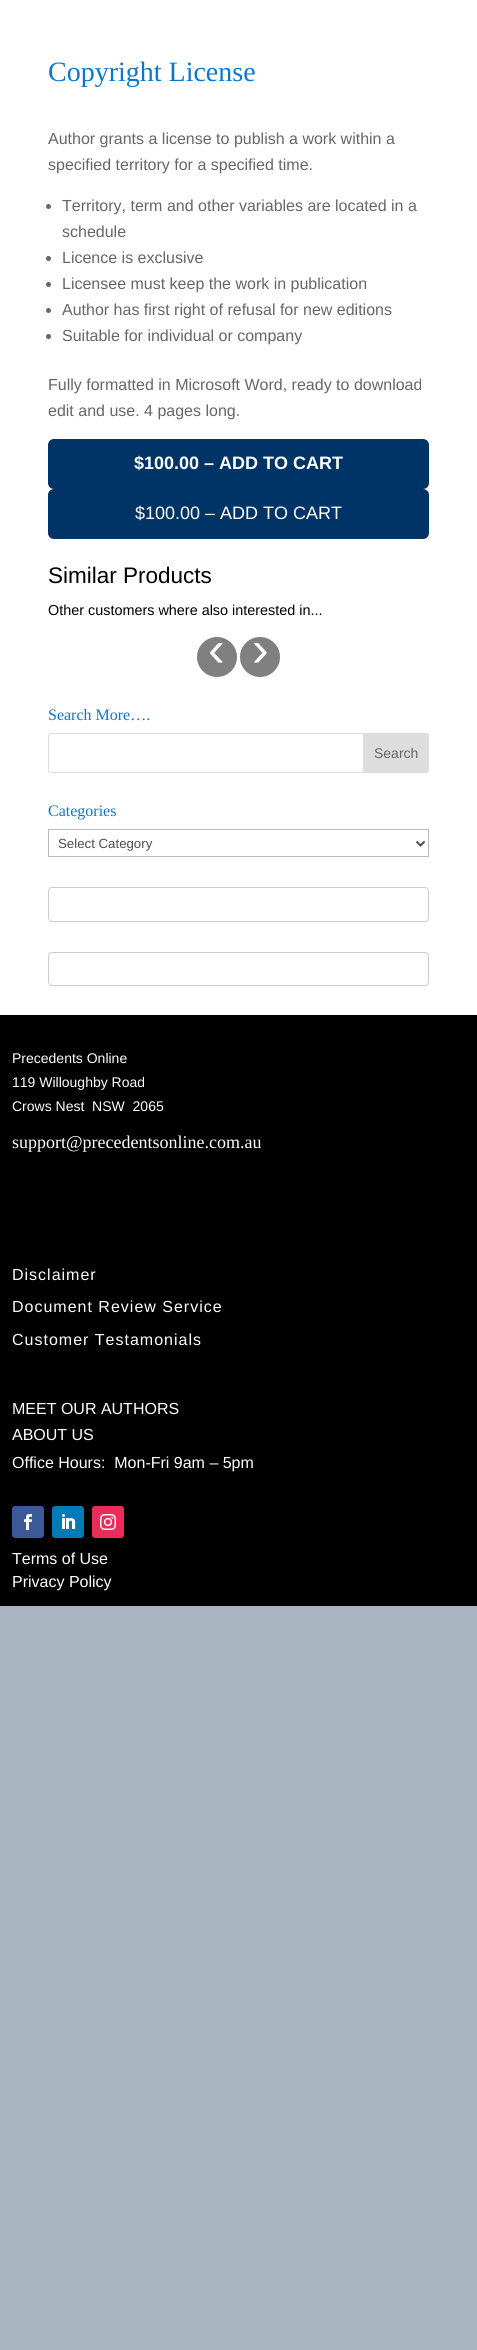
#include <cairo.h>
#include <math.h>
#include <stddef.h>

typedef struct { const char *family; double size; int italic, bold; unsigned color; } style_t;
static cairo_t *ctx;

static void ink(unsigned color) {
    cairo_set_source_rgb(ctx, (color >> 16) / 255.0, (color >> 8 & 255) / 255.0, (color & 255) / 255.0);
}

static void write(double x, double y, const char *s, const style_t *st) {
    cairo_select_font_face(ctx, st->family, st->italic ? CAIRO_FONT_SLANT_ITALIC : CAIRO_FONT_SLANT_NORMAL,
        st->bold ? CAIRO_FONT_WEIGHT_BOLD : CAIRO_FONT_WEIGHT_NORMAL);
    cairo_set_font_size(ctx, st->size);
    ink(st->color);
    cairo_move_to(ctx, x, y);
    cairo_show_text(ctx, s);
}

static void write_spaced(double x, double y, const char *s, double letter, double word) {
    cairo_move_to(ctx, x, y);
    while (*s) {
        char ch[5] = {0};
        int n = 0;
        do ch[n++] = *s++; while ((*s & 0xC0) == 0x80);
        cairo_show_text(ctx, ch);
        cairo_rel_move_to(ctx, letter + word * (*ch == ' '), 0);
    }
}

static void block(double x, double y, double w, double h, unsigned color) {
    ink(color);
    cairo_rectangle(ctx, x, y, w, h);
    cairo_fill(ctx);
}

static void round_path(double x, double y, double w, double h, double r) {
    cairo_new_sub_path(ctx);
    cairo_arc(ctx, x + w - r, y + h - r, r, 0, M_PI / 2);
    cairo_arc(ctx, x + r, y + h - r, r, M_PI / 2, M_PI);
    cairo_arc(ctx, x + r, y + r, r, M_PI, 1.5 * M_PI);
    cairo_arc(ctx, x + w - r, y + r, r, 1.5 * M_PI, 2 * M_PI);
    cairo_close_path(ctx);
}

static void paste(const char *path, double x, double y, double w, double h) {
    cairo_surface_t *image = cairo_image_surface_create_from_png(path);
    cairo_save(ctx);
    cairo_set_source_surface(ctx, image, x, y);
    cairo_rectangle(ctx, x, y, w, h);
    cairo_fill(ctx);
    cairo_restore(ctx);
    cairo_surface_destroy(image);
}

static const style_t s1 = {"Liberation Serif", 28, 0, 0, 0x0c77ce};
static const style_t s2 = {"Liberation Sans", 16, 0, 0, 0x666666};
static const style_t s3 = {"Liberation Sans", 18, 0, 1, 0xffffff};
static const style_t s4 = {"Liberation Sans", 18, 0, 0, 0xffffff};
static const style_t s5 = {"Liberation Sans", 22.5, 0, 0, 0x000000};
static const style_t s6 = {"Liberation Sans", 14.4, 0, 0, 0x000000};
static const style_t s7 = {"Liberation Sans", 50, 0, 0, 0xffffff};
static const style_t s8 = {"Liberation Serif", 16, 0, 0, 0x0c77ce};
static const style_t s9 = {"Liberation Sans", 14, 0, 0, 0x666666};
static const style_t s10 = {"Liberation Sans", 13.25, 0, 0, 0x4e4e4e};
static const style_t s11 = {"Liberation Sans", 14, 0, 0, 0xffffff};
static const style_t s12 = {"Liberation Serif", 18, 0, 0, 0xffffff};
static const style_t s13 = {"Liberation Sans", 16, 0, 0, 0xffffff};

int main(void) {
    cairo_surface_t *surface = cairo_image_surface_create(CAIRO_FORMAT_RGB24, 477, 2350);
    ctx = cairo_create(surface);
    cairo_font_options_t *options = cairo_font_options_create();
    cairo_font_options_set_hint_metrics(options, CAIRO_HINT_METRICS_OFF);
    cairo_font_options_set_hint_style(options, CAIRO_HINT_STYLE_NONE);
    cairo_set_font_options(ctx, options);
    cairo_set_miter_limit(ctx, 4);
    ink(0xa8b4bf);
    cairo_paint(ctx);
    block(0, 0, 477, 1015, 0xffffff);
    write(48, 81, "Copyright License", &s1);
    write(48, 144, "Author grants a license to publish a work within a", &s2);
    write(48, 170, "specified territory for a specified time.", &s2);
    cairo_new_path(ctx);
    cairo_arc(ctx, 48.5, 206.5, 2.5, 0, 2 * M_PI);
    cairo_fill(ctx);
    write(62, 211, "Territory, term and other variables are located in a", &s2);
    write(62, 237, "schedule", &s2);
    cairo_new_path(ctx);
    cairo_arc(ctx, 48.5, 258.5, 2.5, 0, 2 * M_PI);
    cairo_fill(ctx);
    write(62, 263, "Licence is exclusive", &s2);
    cairo_new_path(ctx);
    cairo_arc(ctx, 48.5, 284.5, 2.5, 0, 2 * M_PI);
    cairo_fill(ctx);
    write(62, 289, "Licensee must keep the work in publication", &s2);
    cairo_new_path(ctx);
    cairo_arc(ctx, 48.5, 310.5, 2.5, 0, 2 * M_PI);
    cairo_fill(ctx);
    write(62, 315, "Author has first right of refusal for new editions", &s2);
    cairo_new_path(ctx);
    cairo_arc(ctx, 48.5, 336.5, 2.5, 0, 2 * M_PI);
    cairo_fill(ctx);
    write(62, 341, "Suitable for individual or company", &s2);
    write(48, 390, "Fully formatted in Microsoft Word, ready to download", &s2);
    write(48, 416, "edit and use. 4 pages long.", &s2);
    ink(0x003366);
    round_path(48, 439, 381, 50, 6);
    cairo_fill(ctx);
    write(134, 469, "$100.00 – ADD TO CART", &s3);
    ink(0x003366);
    round_path(48, 489, 381, 50, 6);
    cairo_fill(ctx);
    write(135, 519, "$100.00 – ADD TO CART", &s4);
    write(48, 583, "Similar Products", &s5);
    write(48, 615, "Other customers where also interested in...", &s6);
    ink(0x808080);
    cairo_new_path(ctx);
    cairo_arc(ctx, 217, 657, 20, 0, 2 * M_PI);
    cairo_fill(ctx);
    write(208, 666, "‹", &s7);
    ink(0x808080);
    cairo_new_path(ctx);
    cairo_arc(ctx, 260, 657, 20, 0, 2 * M_PI);
    cairo_fill(ctx);
    write(252, 666, "›", &s7);
    write(48, 720, "Search More….", &s8);
    round_path(48.5, 733.5, 380, 39, 2.5);
    ink(0xdddddd);
    cairo_set_line_width(ctx, 1);
    cairo_stroke(ctx);
    cairo_new_path(ctx);
    cairo_move_to(ctx, 363.5, 733.5);
    cairo_line_to(ctx, 426, 733.5);
    cairo_curve_to(ctx, 427.5, 733.5, 428.5, 734.5, 428.5, 736);
    cairo_line_to(ctx, 428.5, 770);
    cairo_curve_to(ctx, 428.5, 771.5, 427.5, 772.5, 426, 772.5);
    cairo_line_to(ctx, 363.5, 772.5);
    cairo_close_path(ctx);
    cairo_fill_preserve(ctx);
    cairo_stroke(ctx);
    write(374, 758, "Search", &s9);
    write(48, 816, "Categories", &s8);
    cairo_rectangle(ctx, 48.5, 829.5, 380, 27);
    ink(0xbbbbbb);
    cairo_stroke(ctx);
    cairo_new_path(ctx);
    cairo_move_to(ctx, 416.5, 841.5);
    cairo_line_to(ctx, 420.5, 845.5);
    cairo_line_to(ctx, 424.5, 841.5);
    ink(0x4e4e4e);
    cairo_set_line_width(ctx, 2);
    cairo_stroke(ctx);
    write(58, 848, "Select Category", &s10);
    round_path(48.5, 887.5, 380, 34, 3.5);
    ink(0xcccccc);
    cairo_set_line_width(ctx, 1);
    cairo_stroke(ctx);
    round_path(48.5, 952.5, 380, 33, 3.5);
    cairo_stroke(ctx);
    block(0, 1015, 477, 591, 0x000000);
    write(12, 1063, "Precedents Online", &s11);
    write(12, 1087, "119 Willoughby Road", &s11);
    write(12, 1111, "Crows Nest  NSW  2065", &s11);
    write(12, 1148, "support@precedentsonline.com.au", &s12);
    cairo_select_font_face(ctx, "Liberation Sans", CAIRO_FONT_SLANT_NORMAL, CAIRO_FONT_WEIGHT_NORMAL);
    cairo_set_font_size(ctx, 16);
    write_spaced(12, 1280, "Disclaimer", 1, 0);
    write_spaced(12, 1312, "Document Review Service", 1, 0);
    write_spaced(12, 1345, "Customer Testamonials", 1, 0);
    write(12, 1414, "MEET OUR AUTHORS", &s13);
    write(12, 1440, "ABOUT US", &s13);
    write(12, 1468, "Office Hours:  Mon-Fri 9am – 5pm", &s13);
    ink(0x3b5998);
    round_path(12, 1506, 32, 32, 3);
    cairo_fill(ctx);
    paste("pic1.png", 24, 1514, 8, 16);
    ink(0x007bb6);
    round_path(52, 1506, 32, 32, 3);
    cairo_fill(ctx);
    paste("pic2.png", 62, 1514, 14, 15);
    ink(0xea2c59);
    round_path(92, 1506, 32, 32, 3);
    cairo_fill(ctx);
    paste("pic3.png", 100, 1514, 16, 16);
    write(12, 1564, "Terms of Use", &s13);
    write(12, 1587, "Privacy Policy", &s13);
    cairo_surface_write_to_png(surface, "screenshot.png");
    cairo_font_options_destroy(options);
    cairo_destroy(ctx);
    cairo_surface_destroy(surface);
    return 0;
}
